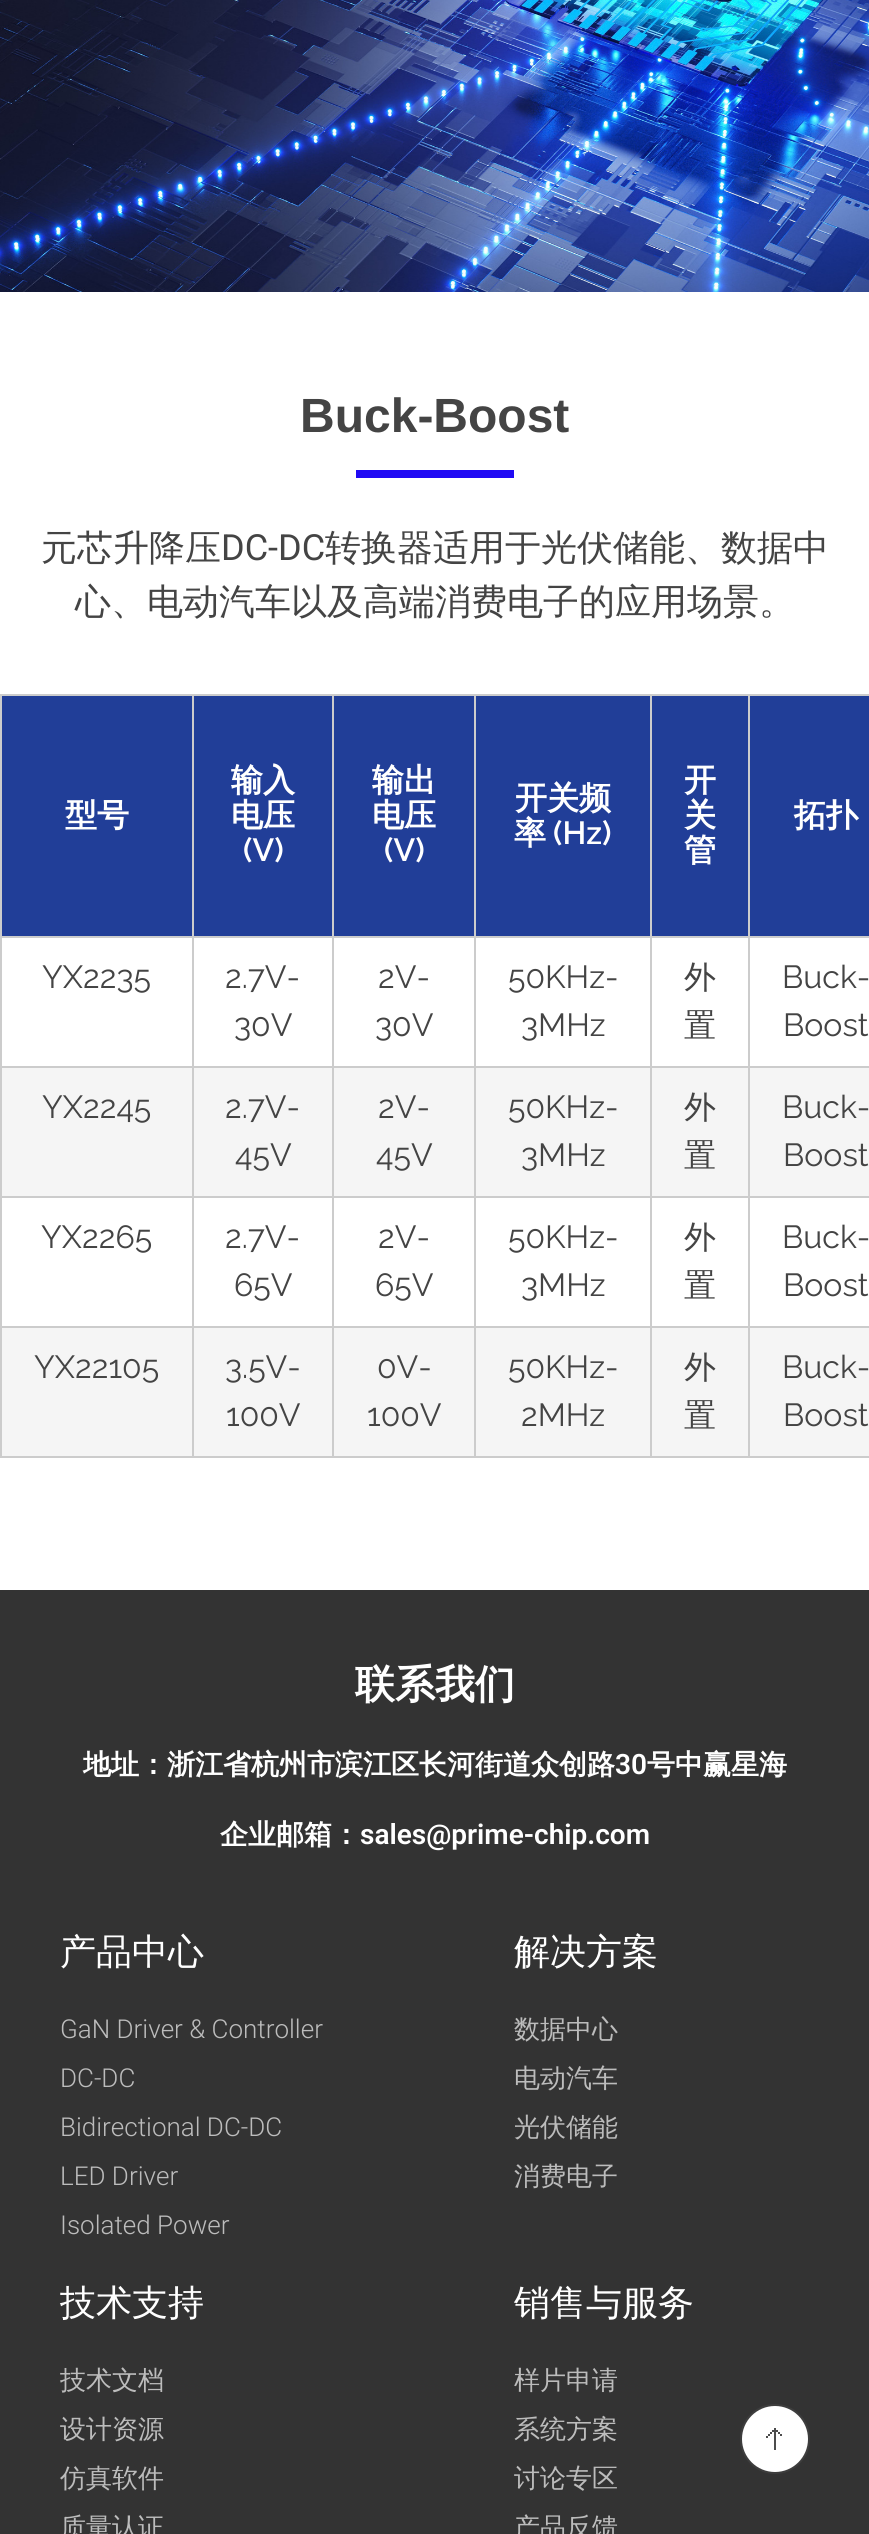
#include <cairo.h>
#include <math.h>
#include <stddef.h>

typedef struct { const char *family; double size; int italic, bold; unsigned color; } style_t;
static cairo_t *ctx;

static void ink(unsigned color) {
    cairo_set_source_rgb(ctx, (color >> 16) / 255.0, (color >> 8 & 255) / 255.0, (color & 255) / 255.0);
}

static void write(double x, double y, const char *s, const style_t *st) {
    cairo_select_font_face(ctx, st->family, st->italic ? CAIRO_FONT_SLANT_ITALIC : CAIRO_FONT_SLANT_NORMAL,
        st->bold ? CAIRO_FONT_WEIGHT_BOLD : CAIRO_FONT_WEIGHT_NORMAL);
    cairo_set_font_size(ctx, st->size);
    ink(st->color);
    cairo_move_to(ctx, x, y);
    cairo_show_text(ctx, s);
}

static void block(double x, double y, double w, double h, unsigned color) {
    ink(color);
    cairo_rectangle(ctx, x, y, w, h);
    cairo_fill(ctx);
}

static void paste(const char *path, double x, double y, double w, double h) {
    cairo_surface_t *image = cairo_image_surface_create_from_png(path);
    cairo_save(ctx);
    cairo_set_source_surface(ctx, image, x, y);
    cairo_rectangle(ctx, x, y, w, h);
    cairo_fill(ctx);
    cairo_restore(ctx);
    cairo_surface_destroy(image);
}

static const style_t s1 = {"Liberation Sans", 48, 0, 1, 0x444444};
static const style_t s2 = {"WenQuanYi Zen Hei Medium", 36, 0, 0, 0x444444};
static const style_t s3 = {"Roboto", 36, 0, 0, 0x444444};
static const style_t s4 = {"WenQuanYi Zen Hei", 32, 0, 1, 0xffffff};
static const style_t s5 = {"Raleway SemiBold", 32, 0, 0, 0xffffff};
static const style_t s6 = {"Raleway", 32, 0, 0, 0x444444};
static const style_t s7 = {"WenQuanYi Zen Hei Medium", 32, 0, 0, 0x444444};
static const style_t s8 = {"WenQuanYi Zen Hei", 40, 0, 1, 0xffffff};
static const style_t s9 = {"WenQuanYi Zen Hei", 28, 0, 1, 0xffffff};
static const style_t s10 = {"Roboto SemiBold", 28, 0, 0, 0xffffff};
static const style_t s11 = {"WenQuanYi Zen Hei Medium", 36, 0, 0, 0xffffff};
static const style_t s12 = {"Roboto Light", 26, 0, 0, 0xbcbcbc};
static const style_t s13 = {"WenQuanYi Zen Hei Medium", 26, 0, 0, 0xbcbcbc};

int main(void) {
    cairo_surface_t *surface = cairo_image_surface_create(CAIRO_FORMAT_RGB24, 869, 2534);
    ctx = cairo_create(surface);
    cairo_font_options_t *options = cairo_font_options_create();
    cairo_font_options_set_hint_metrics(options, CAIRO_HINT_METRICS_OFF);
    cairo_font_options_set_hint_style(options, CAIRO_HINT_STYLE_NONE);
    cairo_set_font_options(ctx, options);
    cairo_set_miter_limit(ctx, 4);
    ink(0xffffff);
    cairo_paint(ctx);
    paste("pic1.png", 0, 0, 869, 292);
    write(300, 432, "Buck-Boost", &s1);
    block(356, 470, 158, 8, 0x210af4);
    write(41, 560, "元芯升降压", &s2);
    write(221, 560, "DC-DC", &s3);
    write(325, 560, "转换器适用于光伏储能、数据中", &s2);
    write(75, 614, "心、电动汽车以及高端消费电子的应用场景。", &s2);
    block(2, 696, 190, 240, 0x213e98);
    block(748, 694, 121, 2, 0xcccccc);
    block(748, 936, 121, 2, 0xcccccc);
    block(748, 1066, 121, 2, 0xcccccc);
    block(748, 1196, 121, 2, 0xcccccc);
    block(748, 1326, 121, 2, 0xcccccc);
    block(748, 1456, 121, 2, 0xcccccc);
    block(748, 1326, 2, 132, 0xcccccc);
    block(650, 1326, 100, 2, 0xcccccc);
    block(748, 1196, 2, 132, 0xcccccc);
    block(650, 1196, 100, 2, 0xcccccc);
    block(748, 1066, 2, 132, 0xcccccc);
    block(650, 1066, 100, 2, 0xcccccc);
    block(748, 936, 2, 132, 0xcccccc);
    block(650, 936, 100, 2, 0xcccccc);
    block(748, 694, 2, 244, 0xcccccc);
    block(650, 694, 100, 2, 0xcccccc);
    block(650, 1456, 100, 2, 0xcccccc);
    block(650, 1326, 2, 132, 0xcccccc);
    block(474, 1326, 178, 2, 0xcccccc);
    block(650, 1196, 2, 132, 0xcccccc);
    block(474, 1196, 178, 2, 0xcccccc);
    block(650, 1066, 2, 132, 0xcccccc);
    block(474, 1066, 178, 2, 0xcccccc);
    block(650, 936, 2, 132, 0xcccccc);
    block(474, 936, 178, 2, 0xcccccc);
    block(650, 694, 2, 244, 0xcccccc);
    block(474, 694, 178, 2, 0xcccccc);
    block(474, 1456, 178, 2, 0xcccccc);
    block(474, 1326, 2, 132, 0xcccccc);
    block(332, 1326, 144, 2, 0xcccccc);
    block(474, 1196, 2, 132, 0xcccccc);
    block(332, 1196, 144, 2, 0xcccccc);
    block(474, 1066, 2, 132, 0xcccccc);
    block(332, 1066, 144, 2, 0xcccccc);
    block(474, 936, 2, 132, 0xcccccc);
    block(332, 936, 144, 2, 0xcccccc);
    block(474, 694, 2, 244, 0xcccccc);
    block(332, 694, 144, 2, 0xcccccc);
    block(332, 1456, 144, 2, 0xcccccc);
    block(332, 1326, 2, 132, 0xcccccc);
    block(192, 1326, 142, 2, 0xcccccc);
    block(332, 1196, 2, 132, 0xcccccc);
    block(192, 1196, 142, 2, 0xcccccc);
    block(332, 1066, 2, 132, 0xcccccc);
    block(192, 1066, 142, 2, 0xcccccc);
    block(332, 936, 2, 132, 0xcccccc);
    block(192, 936, 142, 2, 0xcccccc);
    block(332, 694, 2, 244, 0xcccccc);
    block(192, 694, 142, 2, 0xcccccc);
    block(192, 1456, 142, 2, 0xcccccc);
    block(192, 1326, 2, 132, 0xcccccc);
    block(0, 1326, 194, 2, 0xcccccc);
    block(192, 1196, 2, 132, 0xcccccc);
    block(0, 1196, 194, 2, 0xcccccc);
    block(192, 1066, 2, 132, 0xcccccc);
    block(0, 1066, 194, 2, 0xcccccc);
    block(192, 936, 2, 132, 0xcccccc);
    block(0, 936, 194, 2, 0xcccccc);
    block(192, 694, 2, 244, 0xcccccc);
    block(0, 694, 194, 2, 0xcccccc);
    block(0, 1456, 194, 2, 0xcccccc);
    block(0, 1326, 2, 132, 0xcccccc);
    block(0, 1196, 2, 132, 0xcccccc);
    block(0, 1066, 2, 132, 0xcccccc);
    block(0, 936, 2, 132, 0xcccccc);
    block(0, 694, 2, 244, 0xcccccc);
    write(65, 826, "型号", &s4);
    block(194, 696, 138, 240, 0x213e98);
    write(231, 791, "输入", &s4);
    write(231, 826, "电压", &s4);
    write(243, 861, "(V)", &s5);
    block(334, 696, 140, 240, 0x213e98);
    write(372, 791, "输出", &s4);
    write(372, 826, "电压", &s4);
    write(384, 861, "(V)", &s5);
    block(476, 696, 174, 240, 0x213e98);
    write(515, 809, "开关频", &s4);
    write(514, 844, "率", &s4);
    write(553, 844, "(Hz)", &s5);
    block(652, 696, 96, 240, 0x213e98);
    write(684, 791, "开", &s4);
    write(684, 826, "关", &s4);
    write(684, 861, "管", &s4);
    block(750, 696, 119, 240, 0x213e98);
    write(794, 826, "拓扑", &s4);
    write(42, 988, "YX2235", &s6);
    write(225, 988, "2.7V-", &s6);
    write(234, 1036, "30V", &s6);
    write(378, 988, "2V-", &s6);
    write(375, 1036, "30V", &s6);
    write(508, 988, "50KHz-", &s6);
    write(521, 1036, "3MHz", &s6);
    write(684, 988, "外", &s7);
    write(684, 1036, "置", &s7);
    write(782, 988, "Buck-", &s6);
    write(783, 1036, "Boost", &s6);
    block(2, 1068, 190, 128, 0xf5f5f5);
    write(42, 1118, "YX2245", &s6);
    block(194, 1068, 138, 128, 0xf5f5f5);
    write(225, 1118, "2.7V-", &s6);
    write(235, 1166, "45V", &s6);
    block(334, 1068, 140, 128, 0xf5f5f5);
    write(378, 1118, "2V-", &s6);
    write(376, 1166, "45V", &s6);
    block(476, 1068, 174, 128, 0xf5f5f5);
    write(508, 1118, "50KHz-", &s6);
    write(521, 1166, "3MHz", &s6);
    block(652, 1068, 96, 128, 0xf5f5f5);
    write(684, 1118, "外", &s7);
    write(684, 1166, "置", &s7);
    block(750, 1068, 119, 128, 0xf5f5f5);
    write(782, 1118, "Buck-", &s6);
    write(783, 1166, "Boost", &s6);
    write(41, 1248, "YX2265", &s6);
    write(225, 1248, "2.7V-", &s6);
    write(234, 1296, "65V", &s6);
    write(378, 1248, "2V-", &s6);
    write(375, 1296, "65V", &s6);
    write(508, 1248, "50KHz-", &s6);
    write(521, 1296, "3MHz", &s6);
    write(684, 1248, "外", &s7);
    write(684, 1296, "置", &s7);
    write(782, 1248, "Buck-", &s6);
    write(783, 1296, "Boost", &s6);
    block(2, 1328, 190, 128, 0xf5f5f5);
    write(34, 1378, "YX22105", &s6);
    block(194, 1328, 138, 128, 0xf5f5f5);
    write(225, 1378, "3.5V-", &s6);
    write(226, 1426, "100V", &s6);
    block(334, 1328, 140, 128, 0xf5f5f5);
    write(377, 1378, "0V-", &s6);
    write(367, 1426, "100V", &s6);
    block(476, 1328, 174, 128, 0xf5f5f5);
    write(508, 1378, "50KHz-", &s6);
    write(521, 1426, "2MHz", &s6);
    block(652, 1328, 96, 128, 0xf5f5f5);
    write(684, 1378, "外", &s7);
    write(684, 1426, "置", &s7);
    block(750, 1328, 119, 128, 0xf5f5f5);
    write(782, 1378, "Buck-", &s6);
    write(783, 1426, "Boost", &s6);
    block(0, 1590, 869, 944, 0x333333);
    write(355, 1698, "联系我们", &s8);
    write(83, 1774, "地址：浙江省杭州市滨江区长河街道众创路", &s9);
    write(615, 1774, "30", &s10);
    write(647, 1774, "号中赢星海", &s9);
    write(220, 1844, "企业邮箱：", &s9);
    write(360, 1844, "sales@prime-chip.com", &s10);
    write(60, 1964, "产品中心", &s11);
    write(60, 2038, "GaN Driver & Controller", &s12);
    write(60, 2087, "DC-DC", &s12);
    write(60, 2136, "Bidirectional DC-DC", &s12);
    write(60, 2185, "LED Driver", &s12);
    write(60, 2234, "Isolated Power", &s12);
    write(514, 1964, "解决方案", &s11);
    write(514, 2038, "数据中心", &s13);
    write(514, 2087, "电动汽车", &s13);
    write(514, 2136, "光伏储能", &s13);
    write(514, 2185, "消费电子", &s13);
    write(60, 2315, "技术支持", &s11);
    write(60, 2389, "技术文档", &s13);
    write(60, 2438, "设计资源", &s13);
    write(60, 2487, "仿真软件", &s13);
    write(60, 2536, "质量认证", &s13);
    write(514, 2315, "销售与服务", &s11);
    write(514, 2389, "样片申请", &s13);
    write(514, 2438, "系统方案", &s13);
    write(514, 2487, "讨论专区", &s13);
    write(514, 2536, "产品反馈", &s13);
    ink(0xffffff);
    cairo_new_path(ctx);
    cairo_arc(ctx, 775, 2439, 34, 0, 2 * M_PI);
    cairo_fill_preserve(ctx);
    ink(0x3d3d3d);
    cairo_stroke(ctx);
    paste("pic2.png", 766, 2428, 16, 22);
    cairo_surface_write_to_png(surface, "screenshot.png");
    cairo_font_options_destroy(options);
    cairo_destroy(ctx);
    cairo_surface_destroy(surface);
    return 0;
}
